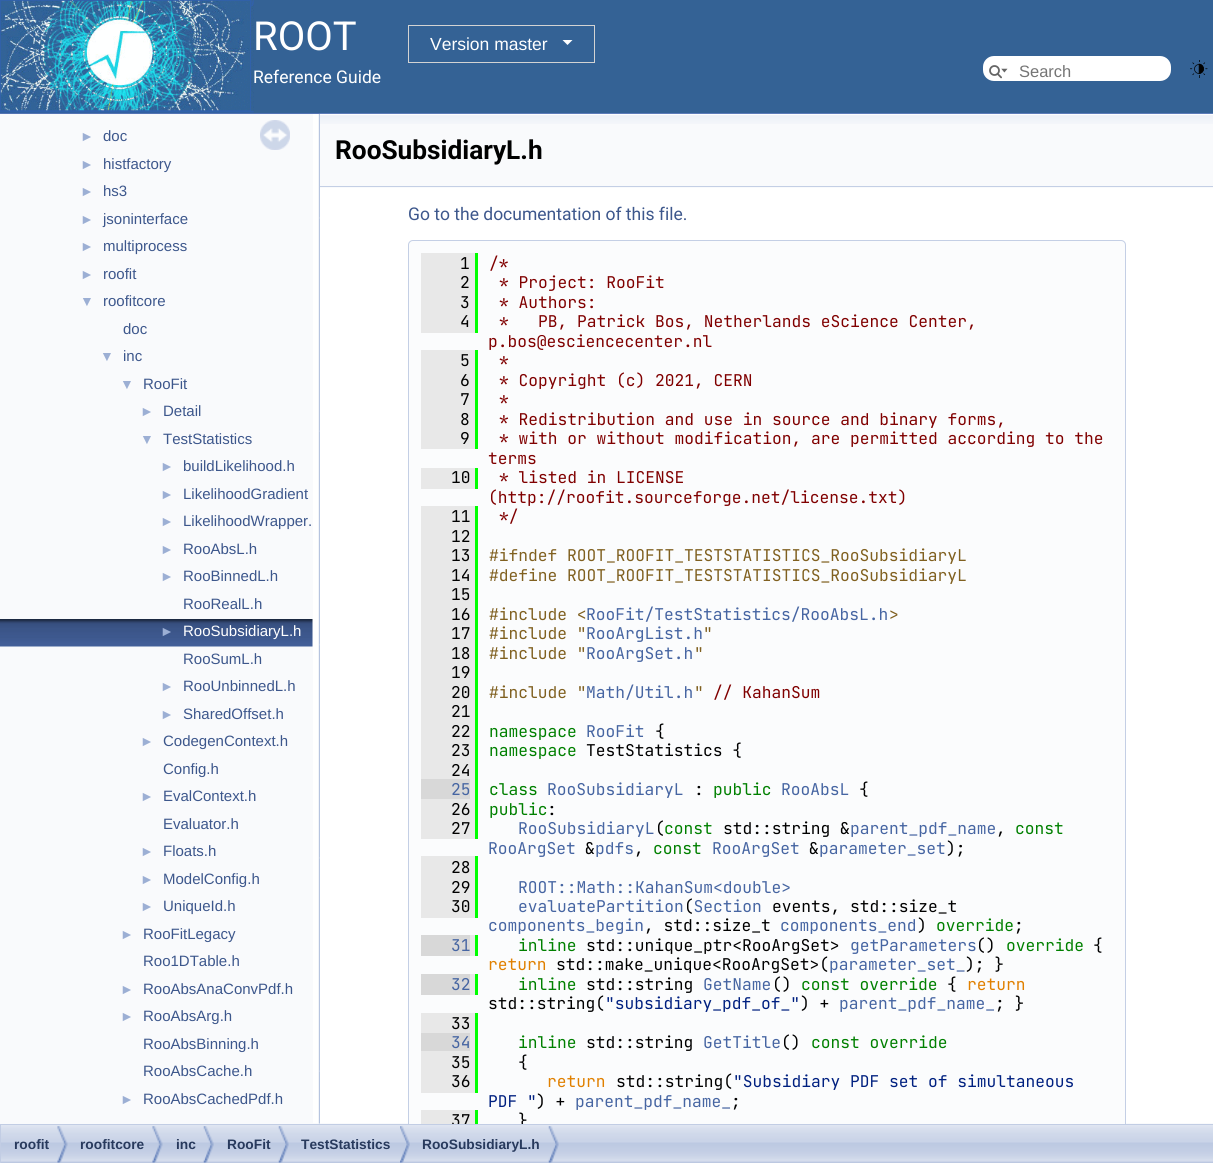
#include <cairo.h>
#include <math.h>
#include <stddef.h>

typedef struct { const char *family; double size; int italic, bold; unsigned color; } style_t;
static cairo_t *ctx;

static void ink(unsigned color) {
    cairo_set_source_rgb(ctx, (color >> 16) / 255.0, (color >> 8 & 255) / 255.0, (color & 255) / 255.0);
}

static void write(double x, double y, const char *s, const style_t *st) {
    cairo_select_font_face(ctx, st->family, st->italic ? CAIRO_FONT_SLANT_ITALIC : CAIRO_FONT_SLANT_NORMAL,
        st->bold ? CAIRO_FONT_WEIGHT_BOLD : CAIRO_FONT_WEIGHT_NORMAL);
    cairo_set_font_size(ctx, st->size);
    ink(st->color);
    cairo_move_to(ctx, x, y);
    cairo_show_text(ctx, s);
}

static void block(double x, double y, double w, double h, unsigned color) {
    ink(color);
    cairo_rectangle(ctx, x, y, w, h);
    cairo_fill(ctx);
}

static void round_path(double x, double y, double w, double h, double r) {
    cairo_new_sub_path(ctx);
    cairo_arc(ctx, x + w - r, y + h - r, r, 0, M_PI / 2);
    cairo_arc(ctx, x + r, y + h - r, r, M_PI / 2, M_PI);
    cairo_arc(ctx, x + r, y + r, r, M_PI, 1.5 * M_PI);
    cairo_arc(ctx, x + w - r, y + r, r, 1.5 * M_PI, 2 * M_PI);
    cairo_close_path(ctx);
}

static void paste(const char *path, double x, double y, double w, double h) {
    cairo_surface_t *image = cairo_image_surface_create_from_png(path);
    cairo_save(ctx);
    cairo_set_source_surface(ctx, image, x, y);
    cairo_rectangle(ctx, x, y, w, h);
    cairo_fill(ctx);
    cairo_restore(ctx);
    cairo_surface_destroy(image);
}

static const style_t s1 = {"Roboto", 40, 0, 0, 0xffffff};
static const style_t s2 = {"Liberation Sans", 17.5, 0, 0, 0xffffff};
static const style_t s3 = {"Roboto", 17.5, 0, 0, 0xffffff};
static const style_t s4 = {"Liberation Sans", 16.5, 0, 0, 0x757575};
static const style_t s5 = {"Liberation Sans", 14, 0, 0, 0x9cafd4};
static const style_t s6 = {"Liberation Sans", 15, 0, 0, 0x3d578c};
static const style_t s7 = {"Liberation Sans", 15, 0, 0, 0xffffff};
static const style_t s8 = {"Roboto", 26.25, 0, 1, 0x000000};
static const style_t s9 = {"Roboto", 17.5, 0, 0, 0x3d578c};
static const style_t s10 = {"JetBrains Mono", 16.25, 0, 0, 0x000000};
static const style_t s11 = {"JetBrains Mono", 16.25, 0, 0, 0x800000};
static const style_t s12 = {"JetBrains Mono", 16.25, 0, 0, 0x806020};
static const style_t s13 = {"JetBrains Mono", 16.25, 0, 0, 0x4665a2};
static const style_t s14 = {"JetBrains Mono", 16.25, 0, 0, 0x008000};
static const style_t s15 = {"JetBrains Mono", 16.25, 0, 0, 0xe08000};
static const style_t s16 = {"JetBrains Mono", 16.25, 0, 0, 0x002080};
static const style_t s17 = {"Liberation Sans", 13.75, 0, 1, 0x283a5d};

int main(void) {
    cairo_surface_t *surface = cairo_image_surface_create(CAIRO_FORMAT_RGB24, 1213, 1163);
    ctx = cairo_create(surface);
    cairo_font_options_t *options = cairo_font_options_create();
    cairo_font_options_set_hint_metrics(options, CAIRO_HINT_METRICS_OFF);
    cairo_font_options_set_hint_style(options, CAIRO_HINT_STYLE_NONE);
    cairo_set_font_options(ctx, options);
    cairo_set_miter_limit(ctx, 4);
    ink(0xffffff);
    cairo_paint(ctx);
    block(0, 113, 1213, 1, 0x5373b4);
    block(0, 0, 1213, 113, 0x346295);
    paste("pic1.png", 0, 0, 254, 113);
    write(253, 50, "ROOT", &s1);
    cairo_rectangle(ctx, 408.5, 25.5, 186, 37);
    ink(0xd3d3d3);
    cairo_set_line_width(ctx, 1);
    cairo_stroke(ctx);
    write(430, 50, "Version master", &s2);
    cairo_new_path(ctx);
    cairo_move_to(ctx, 562.5, 40);
    cairo_line_to(ctx, 572.5, 40);
    cairo_line_to(ctx, 567.5, 45);
    cairo_close_path(ctx);
    cairo_fill(ctx);
    write(253, 83, "Reference Guide", &s3);
    round_path(983, 56, 188, 25, 11);
    cairo_fill(ctx);
    paste("pic2.png", 989, 65, 19, 14);
    write(1019, 77, "Search", &s4);
    paste("pic3.png", 1190, 60, 18, 18);
    paste("pic8.png", 1, 1123, 1212, 40);
    block(0, 114, 313, 1010, 0xf9fafc);
    paste("pic4.png", 260, 120, 30, 30);
    write(80, 141, "►", &s5);
    write(103, 141, "doc", &s6);
    write(80, 169, "►", &s5);
    write(103, 169, "histfactory", &s6);
    write(80, 196, "►", &s5);
    write(103, 196, "hs3", &s6);
    write(80, 224, "►", &s5);
    write(103, 224, "jsoninterface", &s6);
    write(80, 251, "►", &s5);
    write(103, 251, "multiprocess", &s6);
    write(80, 279, "►", &s5);
    write(103, 279, "roofit", &s6);
    write(80, 306, "▼", &s5);
    write(103, 306, "roofitcore", &s6);
    write(123, 334, "doc", &s6);
    write(100, 361, "▼", &s5);
    write(123, 361, "inc", &s6);
    write(120, 389, "▼", &s5);
    write(143, 389, "RooFit", &s6);
    write(140, 416, "►", &s5);
    write(163, 416, "Detail", &s6);
    write(140, 444, "▼", &s5);
    write(163, 444, "TestStatistics", &s6);
    write(160, 471, "►", &s5);
    write(183, 471, "buildLikelihood.h", &s6);
    write(160, 499, "►", &s5);
    write(183, 499, "LikelihoodGradient", &s6);
    write(160, 526, "►", &s5);
    write(183, 526, "LikelihoodWrapper.", &s6);
    write(160, 554, "►", &s5);
    write(183, 554, "RooAbsL.h", &s6);
    write(160, 581, "►", &s5);
    write(183, 581, "RooBinnedL.h", &s6);
    write(183, 609, "RooRealL.h", &s6);
    paste("pic5.png", 0, 619, 313, 28);
    write(160, 636, "►", &s5);
    write(183, 636, "RooSubsidiaryL.h", &s7);
    write(183, 664, "RooSumL.h", &s6);
    write(160, 691, "►", &s5);
    write(183, 691, "RooUnbinnedL.h", &s6);
    write(160, 719, "►", &s5);
    write(183, 719, "SharedOffset.h", &s6);
    write(140, 746, "►", &s5);
    write(163, 746, "CodegenContext.h", &s6);
    write(163, 774, "Config.h", &s6);
    write(140, 801, "►", &s5);
    write(163, 801, "EvalContext.h", &s6);
    write(163, 829, "Evaluator.h", &s6);
    write(140, 856, "►", &s5);
    write(163, 856, "Floats.h", &s6);
    write(140, 884, "►", &s5);
    write(163, 884, "ModelConfig.h", &s6);
    write(140, 911, "►", &s5);
    write(163, 911, "UniqueId.h", &s6);
    write(120, 939, "►", &s5);
    write(143, 939, "RooFitLegacy", &s6);
    write(143, 966, "Roo1DTable.h", &s6);
    write(120, 994, "►", &s5);
    write(143, 994, "RooAbsAnaConvPdf.h", &s6);
    write(120, 1021, "►", &s5);
    write(143, 1021, "RooAbsArg.h", &s6);
    write(143, 1049, "RooAbsBinning.h", &s6);
    write(143, 1076, "RooAbsCache.h", &s6);
    write(120, 1104, "►", &s5);
    write(143, 1104, "RooAbsCachedPdf.h", &s6);
    paste("pic6.png", 318, 113, 2, 1011);
    block(320, 124, 893, 64, 0xf9fafc);
    paste("pic7.png", 320, 113, 893, 11);
    block(320, 186, 893, 1, 0xc4cfe5);
    write(335, 159, "RooSubsidiaryL.h", &s8);
    write(408, 220, "Go to the documentation of this file.", &s9);
    ink(0xfbfcfd);
    cairo_new_path(ctx);
    cairo_move_to(ctx, 413, 240);
    cairo_line_to(ctx, 1121, 240);
    cairo_curve_to(ctx, 1124, 240, 1126, 242, 1126, 245);
    cairo_line_to(ctx, 1126, 1124);
    cairo_line_to(ctx, 408, 1124);
    cairo_line_to(ctx, 408, 245);
    cairo_curve_to(ctx, 408, 242, 410, 240, 413, 240);
    cairo_close_path(ctx);
    cairo_fill(ctx);
    cairo_rectangle(ctx, 0.5, 1124.5, 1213, 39);
    ink(0xc2cde4);
    cairo_stroke(ctx);
    paste("pic13.png", 400, 1126, 10, 37);
    paste("pic12.png", 548, 1126, 11, 37);
    cairo_save(ctx);
    cairo_rectangle(ctx, 320, 114, 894, 1010);
    cairo_clip(ctx);
    round_path(408.5, 240.5, 717, 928, 4.5);
    ink(0xc4cfe5);
    cairo_stroke(ctx);
    cairo_restore(ctx);
    block(421, 253, 54, 80, 0xe8e8e8);
    write(460, 269, "1", &s10);
    block(475, 253, 3, 80, 0x00ff00);
    write(489, 269, "/*", &s11);
    write(460, 288, "2", &s10);
    write(499, 288, "* Project: RooFit", &s11);
    write(460, 308, "3", &s10);
    write(499, 308, "* Authors:", &s11);
    write(460, 327, "4", &s10);
    write(499, 327, "*   PB, Patrick Bos, Netherlands eScience Center,", &s11);
    write(488, 347, "p.bos@esciencecenter.nl", &s11);
    block(421, 350, 54, 99, 0xe8e8e8);
    write(460, 366, "5", &s10);
    block(475, 350, 3, 99, 0x00ff00);
    write(499, 366, "*", &s11);
    write(460, 386, "6", &s10);
    write(499, 386, "* Copyright (c) 2021, CERN", &s11);
    write(460, 405, "7", &s10);
    write(499, 405, "*", &s11);
    write(460, 425, "8", &s10);
    write(499, 425, "* Redistribution and use in source and binary forms,", &s11);
    write(460, 444, "9", &s10);
    write(499, 444, "* with or without modification, are permitted according to the", &s11);
    write(488, 464, "terms", &s11);
    block(421, 468, 54, 21, 0xe8e8e8);
    write(451, 483, "10", &s10);
    block(475, 468, 3, 21, 0x00ff00);
    write(499, 483, "* listed in LICENSE", &s11);
    write(488, 503, "(http://roofit.sourceforge.net/license.txt)", &s11);
    block(421, 506, 54, 273, 0xe8e8e8);
    write(451, 522, "11", &s10);
    block(475, 506, 3, 333, 0x00ff00);
    write(499, 522, "*/", &s11);
    write(451, 542, "12", &s10);
    write(451, 561, "13", &s10);
    write(489, 561, "#ifndef ROOT_ROOFIT_TESTSTATISTICS_RooSubsidiaryL", &s12);
    write(451, 581, "14", &s10);
    write(489, 581, "#define ROOT_ROOFIT_TESTSTATISTICS_RooSubsidiaryL", &s12);
    write(451, 600, "15", &s10);
    write(451, 620, "16", &s10);
    write(489, 620, "#include <", &s12);
    write(586, 620, "RooFit/TestStatistics/RooAbsL.h", &s13);
    write(889, 620, ">", &s12);
    write(451, 639, "17", &s10);
    write(489, 639, "#include \"", &s12);
    write(586, 639, "RooArgList.h", &s13);
    write(703, 639, "\"", &s12);
    write(451, 659, "18", &s10);
    write(489, 659, "#include \"", &s12);
    write(586, 659, "RooArgSet.h", &s13);
    write(694, 659, "\"", &s12);
    write(451, 678, "19", &s10);
    write(451, 698, "20", &s10);
    write(489, 698, "#include \"", &s12);
    write(586, 698, "Math/Util.h", &s13);
    write(694, 698, "\"", &s12);
    write(713, 698, "// KahanSum", &s11);
    write(451, 717, "21", &s10);
    write(451, 737, "22", &s10);
    write(489, 737, "namespace", &s14);
    write(586, 737, "RooFit", &s13);
    write(655, 737, "{", &s10);
    write(451, 756, "23", &s10);
    write(489, 756, "namespace", &s14);
    write(586, 756, "TestStatistics {", &s10);
    write(451, 776, "24", &s10);
    block(421, 779, 49, 20, 0xd8d8d8);
    write(451, 795, "25", &s13);
    block(470, 779, 5, 20, 0xe8e8e8);
    write(489, 795, "class", &s14);
    write(547, 795, "RooSubsidiaryL", &s13);
    write(694, 795, ":", &s10);
    write(713, 795, "public", &s14);
    write(781, 795, "RooAbsL", &s13);
    write(859, 795, "{", &s10);
    block(421, 799, 54, 40, 0xe8e8e8);
    write(451, 815, "26", &s10);
    write(489, 815, "public", &s14);
    write(547, 815, ":", &s10);
    write(451, 834, "27", &s10);
    write(518, 834, "RooSubsidiaryL", &s13);
    write(655, 834, "(", &s10);
    write(664, 834, "const", &s14);
    write(723, 834, "std::string &", &s10);
    write(850, 834, "parent_pdf_name", &s13);
    write(996, 834, ",", &s10);
    write(1015, 834, "const", &s14);
    write(488, 854, "RooArgSet", &s13);
    write(585, 854, "&", &s10);
    write(595, 854, "pdfs", &s13);
    write(634, 854, ",", &s10);
    write(653, 854, "const", &s14);
    write(712, 854, "RooArgSet", &s13);
    write(809, 854, "&", &s10);
    write(819, 854, "parameter_set", &s13);
    write(946, 854, ");", &s10);
    block(421, 856, 54, 62, 0xe8e8e8);
    write(451, 873, "28", &s10);
    block(475, 856, 3, 62, 0x00ff00);
    write(451, 893, "29", &s10);
    write(518, 893, "ROOT::Math::KahanSum<double>", &s13);
    write(518, 912, "evaluatePartition Section", &s13);
    write(684, 912, "(", &s10);
    write(451, 912, "30", &s10);
    write(772, 912, "events, std::size_t", &s10);
    write(488, 931, "components_begin", &s13);
    write(644, 931, ", std::size_t", &s10);
    write(780, 931, "components_end", &s13);
    write(917, 931, ")", &s10);
    write(936, 931, "override", &s14);
    write(1014, 931, ";", &s10);
    block(421, 935, 49, 21, 0xd8d8d8);
    write(451, 951, "31", &s13);
    block(470, 935, 5, 21, 0xe8e8e8);
    block(475, 935, 3, 21, 0x00ff00);
    write(518, 951, "inline", &s14);
    write(586, 951, "std::unique_ptr<RooArgSet>", &s10);
    write(850, 951, "getParameters", &s13);
    write(976, 951, "()", &s10);
    write(1006, 951, "override", &s14);
    write(1093, 951, "{", &s10);
    write(488, 970, "return", &s15);
    write(556, 970, "std::make_unique<RooArgSet>(", &s10);
    write(829, 970, "parameter_set_", &s13);
    write(965, 970, "); }", &s10);
    block(421, 974, 49, 21, 0xd8d8d8);
    write(451, 990, "32", &s13);
    block(470, 974, 5, 21, 0xe8e8e8);
    block(475, 974, 3, 21, 0x00ff00);
    write(518, 990, "inline", &s14);
    write(586, 990, "std::string", &s10);
    write(703, 990, "GetName", &s13);
    write(772, 990, "()", &s10);
    write(801, 990, "const override", &s14);
    write(947, 990, "{", &s10);
    write(967, 990, "return", &s15);
    write(488, 1009, "std::string(", &s10);
    write(605, 1009, "\"subsidiary_pdf_of_\"", &s16);
    write(800, 1009, ") +", &s10);
    write(839, 1009, "parent_pdf_name_", &s13);
    write(995, 1009, "; }", &s10);
    block(421, 1013, 54, 20, 0xe8e8e8);
    write(451, 1029, "33", &s10);
    block(475, 1013, 3, 80, 0x00ff00);
    block(421, 1033, 49, 18, 0xd8d8d8);
    write(451, 1048, "34", &s13);
    block(470, 1033, 5, 18, 0xe8e8e8);
    write(518, 1048, "inline", &s14);
    write(586, 1048, "std::string", &s10);
    write(703, 1048, "GetTitle", &s13);
    write(781, 1048, "()", &s10);
    write(811, 1048, "const override", &s14);
    block(421, 1051, 54, 42, 0xe8e8e8);
    write(451, 1068, "35", &s10);
    write(518, 1068, "{", &s10);
    write(451, 1087, "36", &s10);
    write(547, 1087, "return", &s15);
    write(616, 1087, "std::string(", &s10);
    write(733, 1087, "\"Subsidiary PDF set of simultaneous", &s16);
    write(488, 1107, "PDF \"", &s16);
    write(536, 1107, ") +", &s10);
    write(575, 1107, "parent_pdf_name_", &s13);
    write(731, 1107, ";", &s10);
    block(421, 1110, 54, 14, 0xe8e8e8);
    cairo_save(ctx);
    cairo_rectangle(ctx, 320, 114, 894, 1010);
    cairo_clip(ctx);
    write(451, 1126, "37", &s10);
    cairo_restore(ctx);
    block(475, 1110, 3, 14, 0x00ff00);
    cairo_save(ctx);
    cairo_rectangle(ctx, 320, 114, 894, 1010);
    cairo_clip(ctx);
    write(518, 1126, "}", &s10);
    cairo_restore(ctx);
    paste("pic9.png", 57, 1126, 11, 37);
    write(14, 1149, "roofit", &s17);
    paste("pic10.png", 152, 1126, 11, 37);
    write(80, 1149, "roofitcore", &s17);
    paste("pic11.png", 203, 1126, 11, 37);
    write(176, 1149, "inc", &s17);
    paste("pic12.png", 278, 1126, 11, 37);
    write(227, 1149, "RooFit", &s17);
    write(301, 1149, "TestStatistics", &s17);
    write(422, 1149, "RooSubsidiaryL.h", &s17);
    cairo_surface_write_to_png(surface, "screenshot.png");
    cairo_font_options_destroy(options);
    cairo_destroy(ctx);
    cairo_surface_destroy(surface);
    return 0;
}
